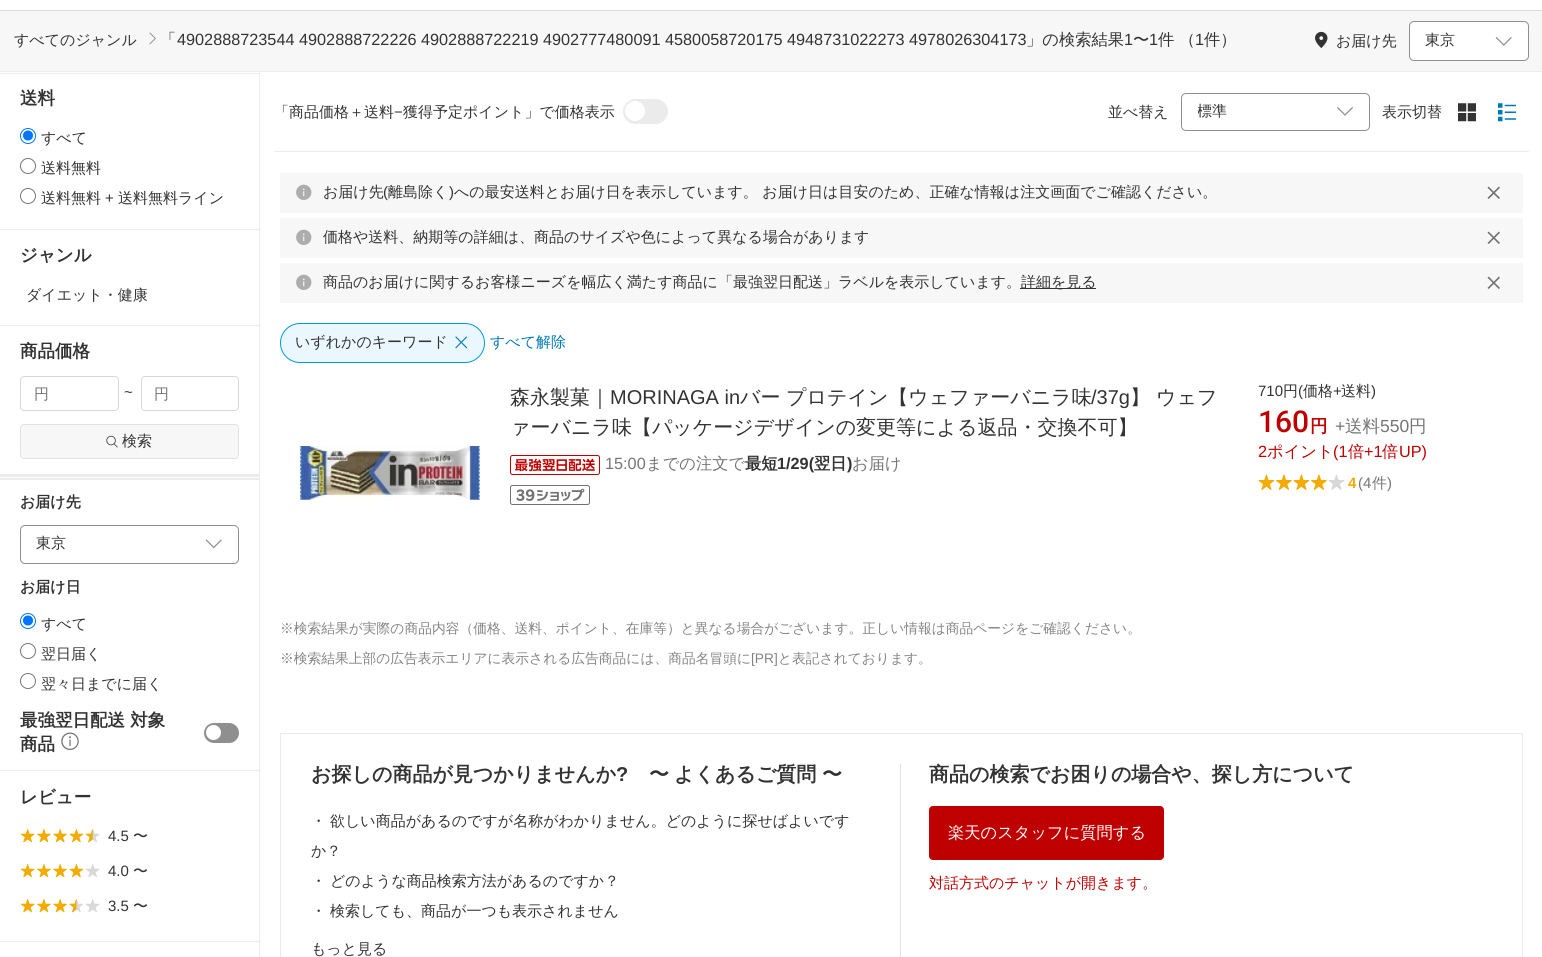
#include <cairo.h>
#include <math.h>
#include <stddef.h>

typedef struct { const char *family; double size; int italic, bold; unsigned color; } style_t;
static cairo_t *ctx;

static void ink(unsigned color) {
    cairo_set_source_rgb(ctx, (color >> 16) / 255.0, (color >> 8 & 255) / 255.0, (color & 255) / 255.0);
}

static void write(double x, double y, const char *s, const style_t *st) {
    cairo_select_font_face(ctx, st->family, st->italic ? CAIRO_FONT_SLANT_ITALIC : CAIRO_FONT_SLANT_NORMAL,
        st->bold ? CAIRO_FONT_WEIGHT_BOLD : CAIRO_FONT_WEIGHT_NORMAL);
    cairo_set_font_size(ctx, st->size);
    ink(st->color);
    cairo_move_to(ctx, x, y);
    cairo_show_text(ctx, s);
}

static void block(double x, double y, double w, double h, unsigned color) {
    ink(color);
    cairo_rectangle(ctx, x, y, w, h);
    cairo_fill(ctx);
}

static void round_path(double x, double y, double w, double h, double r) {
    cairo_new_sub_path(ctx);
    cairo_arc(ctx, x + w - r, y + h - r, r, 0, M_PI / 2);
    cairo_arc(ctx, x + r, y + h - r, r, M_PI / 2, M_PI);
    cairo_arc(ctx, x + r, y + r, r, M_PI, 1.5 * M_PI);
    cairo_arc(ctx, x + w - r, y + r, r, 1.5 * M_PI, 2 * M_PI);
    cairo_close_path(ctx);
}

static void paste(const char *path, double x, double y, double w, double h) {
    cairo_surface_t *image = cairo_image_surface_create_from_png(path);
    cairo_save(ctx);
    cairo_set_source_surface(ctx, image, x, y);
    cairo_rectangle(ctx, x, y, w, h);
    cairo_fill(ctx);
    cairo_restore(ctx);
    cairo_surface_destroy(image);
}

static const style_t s1 = {"WenQuanYi Zen Hei Medium", 15, 0, 0, 0x333333};
static const style_t s2 = {"WenQuanYi Zen Hei Medium", 16.25, 0, 0, 0x333333};
static const style_t s3 = {"Liberation Sans", 16.25, 0, 0, 0x333333};
static const style_t s4 = {"WenQuanYi Zen Hei", 17.5, 0, 1, 0x333333};
static const style_t s5 = {"Liberation Sans", 15, 0, 0, 0x333333};
static const style_t s6 = {"WenQuanYi Zen Hei Medium", 15, 0, 0, 0x757575};
static const style_t s7 = {"WenQuanYi Zen Hei", 15, 0, 1, 0x333333};
static const style_t s8 = {"WenQuanYi Zen Hei Medium", 15, 0, 0, 0x0078b5};
static const style_t s9 = {"WenQuanYi Zen Hei Medium", 20, 0, 0, 0x333333};
static const style_t s10 = {"Liberation Sans", 20, 0, 0, 0x333333};
static const style_t s11 = {"Liberation Sans", 16.25, 0, 0, 0x757575};
static const style_t s12 = {"WenQuanYi Zen Hei Medium", 16.25, 0, 0, 0x757575};
static const style_t s13 = {"WenQuanYi Zen Hei", 16.25, 0, 1, 0x333333};
static const style_t s14 = {"Liberation Sans", 16.25, 0, 1, 0x333333};
static const style_t s15 = {"Roboto Medium", 30, 0, 0, 0xbf0000};
static const style_t s16 = {"WenQuanYi Zen Hei", 17.5, 0, 1, 0xbf0000};
static const style_t s17 = {"Liberation Sans", 17.5, 0, 0, 0x757575};
static const style_t s18 = {"WenQuanYi Zen Hei Medium", 17.5, 0, 0, 0x757575};
static const style_t s19 = {"Liberation Sans", 16.25, 0, 0, 0xbf0000};
static const style_t s20 = {"WenQuanYi Zen Hei Medium", 16.25, 0, 0, 0xbf0000};
static const style_t s21 = {"Liberation Sans", 15, 0, 1, 0xf2ab00};
static const style_t s22 = {"Liberation Sans", 15, 0, 0, 0x757575};
static const style_t s23 = {"WenQuanYi Zen Hei Medium", 13.75, 0, 0, 0x848484};
static const style_t s24 = {"Liberation Sans", 13.75, 0, 0, 0x848484};
static const style_t s25 = {"WenQuanYi Zen Hei", 20, 0, 1, 0x333333};
static const style_t s26 = {"Liberation Sans", 20, 0, 1, 0x333333};
static const style_t s27 = {"WenQuanYi Zen Hei Medium", 16.25, 0, 0, 0xffffff};
static const style_t s28 = {"WenQuanYi Zen Hei Medium", 15, 0, 0, 0xbf0000};

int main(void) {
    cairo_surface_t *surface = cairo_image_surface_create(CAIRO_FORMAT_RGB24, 1542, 957);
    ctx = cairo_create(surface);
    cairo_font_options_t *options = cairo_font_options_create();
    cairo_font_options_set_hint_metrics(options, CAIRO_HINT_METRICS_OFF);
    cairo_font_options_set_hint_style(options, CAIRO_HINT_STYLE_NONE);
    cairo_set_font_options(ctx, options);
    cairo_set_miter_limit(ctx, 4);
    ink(0xf7f7f7);
    cairo_paint(ctx);
    block(0, 0, 1542, 10, 0xffffff);
    block(0, 10, 1542, 1, 0xdbdbdb);
    write(14, 45, "すべてのジャンル", &s1);
    paste("pic1.png", 149, 32, 7, 13);
    write(160, 45, "「", &s2);
    write(177, 45, "4902888723544 4902888722226 4902888722219 4902777480091 4580058720175 4948731022273 4978026304173", &s3);
    write(1026, 45, "」の検索結果", &s2);
    write(1124, 45, "1", &s3);
    write(1133, 45, "〜", &s2);
    write(1149, 45, "1", &s3);
    write(1158, 45, "件 （", &s2);
    write(1195, 45, "1", &s3);
    write(1204, 45, "件）", &s2);
    paste("pic2.png", 1315, 31, 13, 17);
    write(1336, 46, "お届け先", &s1);
    ink(0xffffff);
    round_path(1409.5, 21.5, 119, 39, 4.5);
    cairo_fill_preserve(ctx);
    ink(0x8f8f8f);
    cairo_set_line_width(ctx, 1);
    cairo_stroke(ctx);
    write(1425, 45, "東京", &s1);
    paste("pic3.png", 1495, 37, 17, 9);
    block(0, 72, 1542, 885, 0xffffff);
    block(0, 71, 1542, 1, 0xececec);
    block(259, 73, 1, 884, 0xececec);
    block(0, 73, 259, 1, 0xececec);
    write(20, 104, "送料", &s4);
    cairo_new_path(ctx);
    cairo_arc(ctx, 28, 136, 7.5, 0, 2 * M_PI);
    ink(0x0075ff);
    cairo_stroke(ctx);
    cairo_arc(ctx, 28, 135.5, 5, 0, 2 * M_PI);
    cairo_fill(ctx);
    write(41, 143, "すべて", &s1);
    cairo_new_path(ctx);
    cairo_arc(ctx, 28, 166, 7.5, 0, 2 * M_PI);
    ink(0x767676);
    cairo_stroke(ctx);
    write(41, 173, "送料無料", &s1);
    cairo_new_path(ctx);
    cairo_arc(ctx, 28, 196, 7.5, 0, 2 * M_PI);
    ink(0x767676);
    cairo_stroke(ctx);
    write(41, 203, "送料無料", &s1);
    write(105, 203, "+", &s5);
    write(118, 203, "送料無料ライン", &s1);
    block(0, 229, 259, 1, 0xececec);
    write(20, 261, "ジャンル", &s4);
    write(26, 300, "ダイエット・健康", &s1);
    block(0, 325, 259, 1, 0xececec);
    write(20, 357, "商品価格", &s4);
    round_path(20.5, 376.5, 98, 34, 3.5);
    ink(0xd8d8d8);
    cairo_stroke(ctx);
    write(34, 399, "円", &s6);
    write(124, 397, "~", &s5);
    round_path(141.5, 376.5, 97, 34, 3.5);
    ink(0xd8d8d8);
    cairo_stroke(ctx);
    write(154, 399, "円", &s6);
    ink(0xf7f7f7);
    round_path(20.5, 424.5, 218, 34, 3.5);
    cairo_fill_preserve(ctx);
    ink(0xe2e2e2);
    cairo_stroke(ctx);
    paste("pic4.png", 106, 435, 12, 13);
    write(122, 446, "検索", &s1);
    block(0, 474, 259, 3, 0xececec);
    block(0, 478, 259, 2, 0xececec);
    write(20, 507, "お届け先", &s7);
    round_path(20.5, 525.5, 218, 38, 4.5);
    ink(0x8f8f8f);
    cairo_stroke(ctx);
    write(36, 548, "東京", &s1);
    paste("pic5.png", 205, 539, 17, 10);
    write(20, 592, "お届け日", &s7);
    cairo_new_path(ctx);
    cairo_arc(ctx, 28, 621, 7.5, 0, 2 * M_PI);
    ink(0x0075ff);
    cairo_stroke(ctx);
    cairo_arc(ctx, 28, 620.5, 5, 0, 2 * M_PI);
    cairo_fill(ctx);
    write(41, 629, "すべて", &s1);
    cairo_new_path(ctx);
    cairo_arc(ctx, 28, 651, 7.5, 0, 2 * M_PI);
    ink(0x767676);
    cairo_stroke(ctx);
    write(41, 659, "翌日届く", &s1);
    cairo_new_path(ctx);
    cairo_arc(ctx, 28, 681, 7.5, 0, 2 * M_PI);
    ink(0x767676);
    cairo_stroke(ctx);
    write(41, 689, "翌々日までに届く", &s1);
    write(20, 726, "最強翌日配送 対象", &s4);
    write(20, 750, "商品", &s4);
    paste("pic6.png", 61, 732, 18, 18);
    ink(0x8f8f8f);
    round_path(205.5, 724.5, 32, 17, 8.5);
    cairo_fill_preserve(ctx);
    cairo_set_line_width(ctx, 3);
    cairo_stroke(ctx);
    ink(0xffffff);
    cairo_arc(ctx, 213.5, 732.5, 7.5, 0, 2 * M_PI);
    cairo_fill(ctx);
    block(0, 770, 259, 1, 0xececec);
    write(20, 803, "レビュー", &s4);
    paste("pic7.png", 20, 829, 15, 14);
    paste("pic8.png", 37, 829, 14, 14);
    paste("pic9.png", 53, 829, 14, 14);
    paste("pic10.png", 69, 829, 15, 14);
    paste("pic12.png", 86, 829, 14, 14);
    paste("pic11.png", 85, 829, 8, 14);
    write(108, 841, "4.5", &s5);
    write(133, 841, "〜", &s1);
    paste("pic7.png", 20, 864, 15, 14);
    paste("pic8.png", 37, 864, 14, 14);
    paste("pic9.png", 53, 864, 14, 14);
    paste("pic10.png", 69, 864, 15, 14);
    paste("pic12.png", 86, 864, 14, 14);
    write(108, 876, "4.0", &s5);
    write(133, 876, "〜", &s1);
    paste("pic7.png", 20, 899, 15, 14);
    paste("pic8.png", 37, 899, 14, 14);
    paste("pic9.png", 53, 899, 14, 14);
    paste("pic13.png", 69, 899, 14, 14);
    paste("pic14.png", 69, 899, 8, 14);
    paste("pic12.png", 86, 899, 14, 14);
    write(108, 911, "3.5", &s5);
    write(133, 911, "〜", &s1);
    block(0, 941, 259, 1, 0xececec);
    block(274, 151, 1255, 1, 0xececec);
    write(274, 117, "「商品価格＋送料", &s1);
    write(394, 117, "−", &s5);
    write(403, 117, "獲得予定ポイント」で価格表示", &s1);
    ink(0xebebeb);
    round_path(623, 99, 45, 25, 12.5);
    cairo_fill(ctx);
    ink(0xffffff);
    cairo_arc(ctx, 635, 111, 10, 0, 2 * M_PI);
    cairo_fill(ctx);
    write(1108, 117, "並べ替え", &s1);
    round_path(1181.5, 93.5, 188, 37, 4.5);
    ink(0x8f8f8f);
    cairo_set_line_width(ctx, 1);
    cairo_stroke(ctx);
    cairo_save(ctx);
    cairo_rectangle(ctx, 1198, 103, 131, 18);
    cairo_clip(ctx);
    write(1197, 116, "標準", &s1);
    cairo_restore(ctx);
    paste("pic15.png", 1337, 107, 16, 9);
    write(1382, 117, "表示切替", &s1);
    paste("pic16.png", 1458, 103, 18, 19);
    paste("pic17.png", 1498, 103, 18, 19);
    block(280, 173, 1243, 40, 0xf7f7f7);
    paste("pic18.png", 296, 184, 16, 16);
    write(323, 197, "お届け先", &s1);
    write(383, 197, "(", &s5);
    write(388, 197, "離島除く", &s1);
    write(449, 197, ")", &s5);
    write(454, 197, "への最安送料とお届け日を表示しています。 お届け日は目安のため、正確な情報は注文画面でご確認ください。", &s1);
    paste("pic19.png", 1487, 186, 13, 13);
    block(280, 218, 1243, 40, 0xf7f7f7);
    paste("pic18.png", 296, 229, 16, 16);
    write(323, 242, "価格や送料、納期等の詳細は、商品のサイズや色によって異なる場合があります", &s1);
    paste("pic19.png", 1487, 231, 13, 13);
    block(280, 263, 1243, 40, 0xf7f7f7);
    paste("pic18.png", 296, 274, 16, 16);
    write(323, 287, "商品のお届けに関するお客様ニーズを幅広く満たす商品に「最強翌日配送」ラベルを表示しています。", &s1);
    block(1020, 288, 76, 1, 0x333333);
    write(1021, 287, "詳細を見る", &s1);
    paste("pic19.png", 1487, 276, 13, 13);
    ink(0xebf7fe);
    round_path(280.5, 323.5, 204, 39, 19.5);
    cairo_fill_preserve(ctx);
    ink(0x0097e2);
    cairo_stroke(ctx);
    write(295, 347, "いずれかのキーワード", &s1);
    paste("pic20.png", 455, 336, 13, 13);
    write(490, 347, "すべて解除", &s8);
    paste("pic21.png", 300, 446, 180, 54);
    write(510, 404, "森永製菓｜", &s9);
    write(610, 404, "MORINAGA in", &s10);
    write(740, 404, "バー", &s9);
    write(786, 404, "プロテイン【ウェファーバニラ味", &s9);
    write(1091, 404, "/37g", &s10);
    write(1130, 404, "】", &s9);
    write(1156, 404, "ウェフ", &s9);
    write(510, 434, "ァーバニラ味【パッケージデザインの変更等による返品・交換不可】", &s9);
    paste("pic22.png", 510, 455, 90, 20);
    write(605, 469, "15:00", &s11);
    write(646, 469, "までの注文で", &s12);
    write(745, 469, "最短", &s13);
    write(777, 469, "1/29(", &s14);
    write(814, 469, "翌日", &s13);
    write(847, 469, ")", &s14);
    write(852, 469, "お届け", &s12);
    paste("pic23.png", 510, 485, 80, 20);
    write(1258, 396, "710", &s5);
    write(1283, 396, "円", &s1);
    write(1298, 396, "(", &s5);
    write(1303, 396, "価格", &s1);
    write(1333, 396, "+", &s5);
    write(1341, 396, "送料", &s1);
    write(1371, 396, ")", &s5);
    write(1258, 432, "160", &s15);
    write(1310, 432, "円", &s16);
    write(1335, 432, "+", &s17);
    write(1345, 432, "送料", &s18);
    write(1380, 432, "550", &s17);
    write(1409, 432, "円", &s18);
    write(1258, 457, "2", &s19);
    write(1267, 457, "ポイント", &s20);
    write(1333, 457, "(1", &s19);
    write(1348, 457, "倍", &s20);
    write(1364, 457, "+1", &s19);
    write(1382, 457, "倍", &s20);
    write(1399, 457, "UP)", &s19);
    paste("pic24.png", 1258, 474, 17, 16);
    paste("pic25.png", 1276, 474, 16, 16);
    paste("pic24.png", 1293, 474, 17, 16);
    paste("pic25.png", 1311, 474, 16, 16);
    paste("pic26.png", 1328, 474, 17, 16);
    write(1348, 488, "4", &s21);
    write(1358, 488, "(4", &s22);
    write(1372, 488, "件", &s6);
    write(1387, 488, ")", &s22);
    write(280, 633, "※検索結果が実際の商品内容（価格、送料、ポイント、在庫等）と異なる場合がございます。正しい情報は商品ページをご確認ください。", &s23);
    write(280, 663, "※検索結果上部の広告表示エリアに表示される広告商品には、商品名冒頭に", &s23);
    write(751, 663, "[PR]", &s24);
    write(778, 663, "と表記されております。", &s23);
    cairo_rectangle(ctx, 280.5, 733.5, 1242, 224);
    ink(0xebebeb);
    cairo_stroke(ctx);
    block(900, 764, 1, 193, 0xe2e2e2);
    write(311, 781, "お探しの商品が見つかりませんか", &s25);
    write(616, 781, "?", &s26);
    write(649, 781, "〜", &s25);
    write(674, 781, "よくあるご質問", &s25);
    write(822, 781, "〜", &s25);
    write(311, 826, "・", &s1);
    write(330, 826, "欲しい商品があるのですが名称がわかりません。どのように探せばよいです", &s1);
    write(311, 856, "か？", &s1);
    write(311, 886, "・", &s1);
    write(330, 886, "どのような商品検索方法があるのですか？", &s1);
    write(311, 916, "・", &s1);
    write(330, 916, "検索しても、商品が一つも表示されません", &s1);
    write(311, 954, "もっと見る", &s1);
    write(929, 781, "商品の検索でお困りの場合や、探し方について", &s25);
    ink(0xbf0000);
    round_path(929.5, 806.5, 234, 53, 3.5);
    cairo_fill_preserve(ctx);
    cairo_stroke(ctx);
    write(948, 838, "楽天のスタッフに質問する", &s27);
    write(929, 888, "対話方式のチャットが開きます。", &s28);
    cairo_surface_write_to_png(surface, "screenshot.png");
    cairo_font_options_destroy(options);
    cairo_destroy(ctx);
    cairo_surface_destroy(surface);
    return 0;
}
